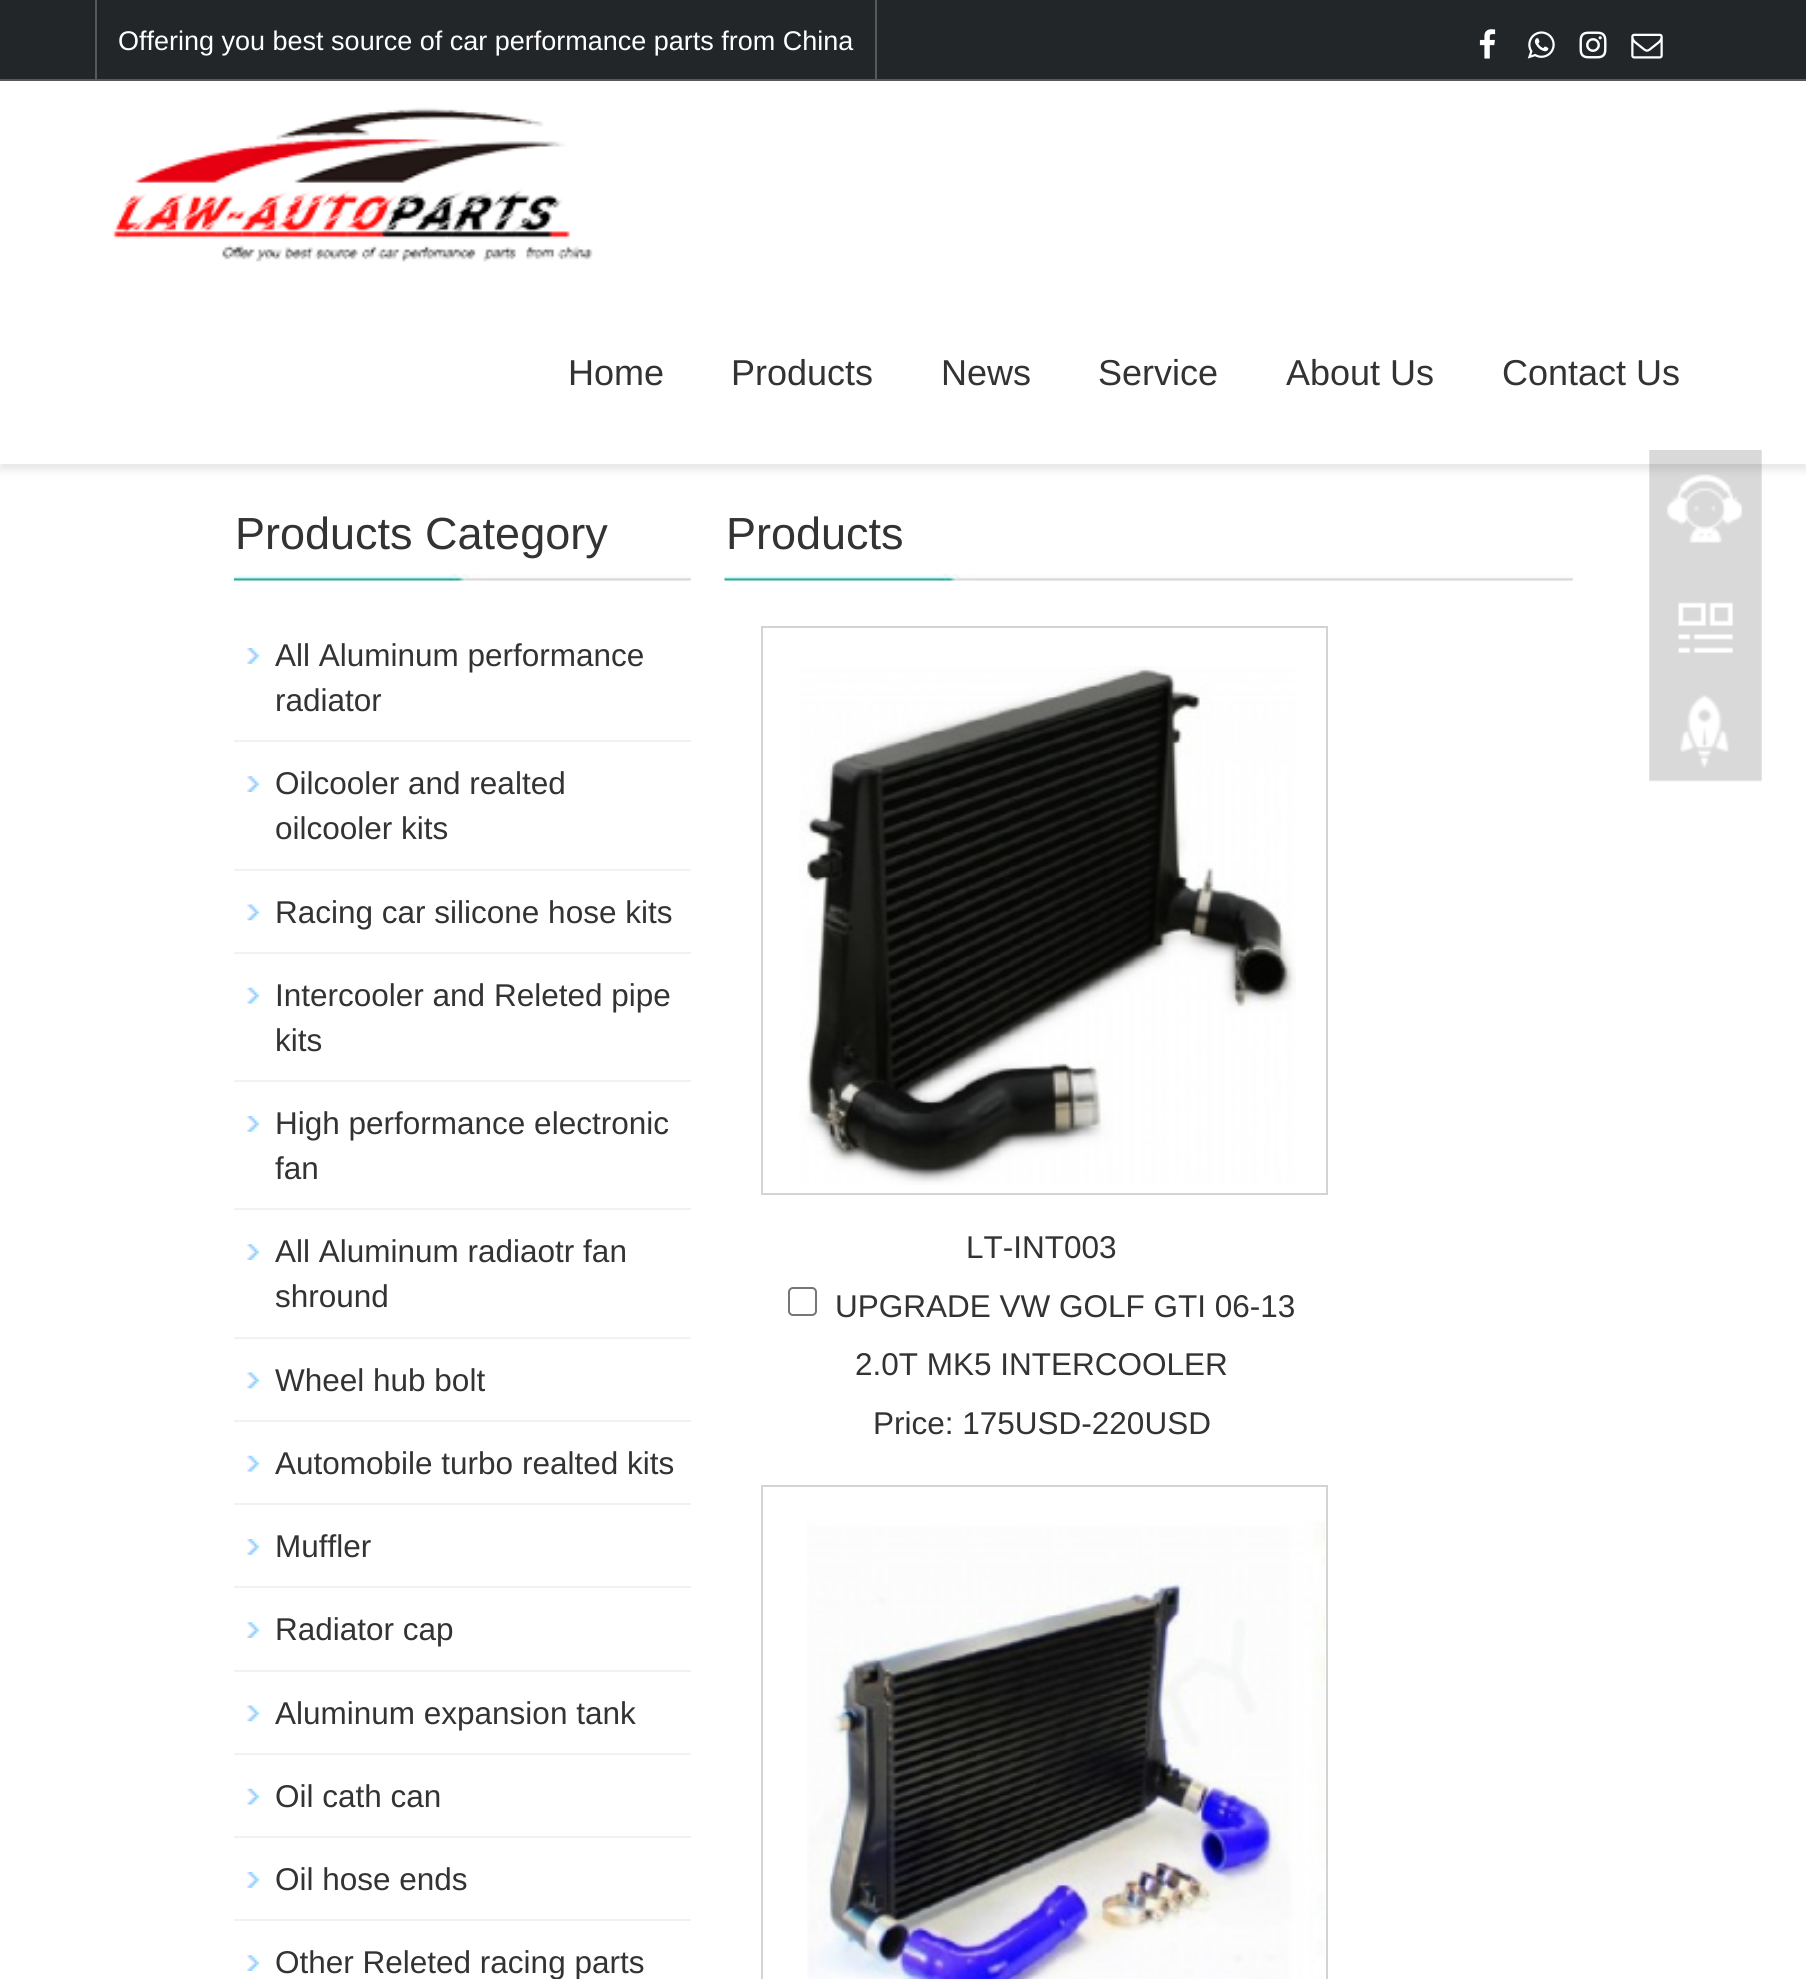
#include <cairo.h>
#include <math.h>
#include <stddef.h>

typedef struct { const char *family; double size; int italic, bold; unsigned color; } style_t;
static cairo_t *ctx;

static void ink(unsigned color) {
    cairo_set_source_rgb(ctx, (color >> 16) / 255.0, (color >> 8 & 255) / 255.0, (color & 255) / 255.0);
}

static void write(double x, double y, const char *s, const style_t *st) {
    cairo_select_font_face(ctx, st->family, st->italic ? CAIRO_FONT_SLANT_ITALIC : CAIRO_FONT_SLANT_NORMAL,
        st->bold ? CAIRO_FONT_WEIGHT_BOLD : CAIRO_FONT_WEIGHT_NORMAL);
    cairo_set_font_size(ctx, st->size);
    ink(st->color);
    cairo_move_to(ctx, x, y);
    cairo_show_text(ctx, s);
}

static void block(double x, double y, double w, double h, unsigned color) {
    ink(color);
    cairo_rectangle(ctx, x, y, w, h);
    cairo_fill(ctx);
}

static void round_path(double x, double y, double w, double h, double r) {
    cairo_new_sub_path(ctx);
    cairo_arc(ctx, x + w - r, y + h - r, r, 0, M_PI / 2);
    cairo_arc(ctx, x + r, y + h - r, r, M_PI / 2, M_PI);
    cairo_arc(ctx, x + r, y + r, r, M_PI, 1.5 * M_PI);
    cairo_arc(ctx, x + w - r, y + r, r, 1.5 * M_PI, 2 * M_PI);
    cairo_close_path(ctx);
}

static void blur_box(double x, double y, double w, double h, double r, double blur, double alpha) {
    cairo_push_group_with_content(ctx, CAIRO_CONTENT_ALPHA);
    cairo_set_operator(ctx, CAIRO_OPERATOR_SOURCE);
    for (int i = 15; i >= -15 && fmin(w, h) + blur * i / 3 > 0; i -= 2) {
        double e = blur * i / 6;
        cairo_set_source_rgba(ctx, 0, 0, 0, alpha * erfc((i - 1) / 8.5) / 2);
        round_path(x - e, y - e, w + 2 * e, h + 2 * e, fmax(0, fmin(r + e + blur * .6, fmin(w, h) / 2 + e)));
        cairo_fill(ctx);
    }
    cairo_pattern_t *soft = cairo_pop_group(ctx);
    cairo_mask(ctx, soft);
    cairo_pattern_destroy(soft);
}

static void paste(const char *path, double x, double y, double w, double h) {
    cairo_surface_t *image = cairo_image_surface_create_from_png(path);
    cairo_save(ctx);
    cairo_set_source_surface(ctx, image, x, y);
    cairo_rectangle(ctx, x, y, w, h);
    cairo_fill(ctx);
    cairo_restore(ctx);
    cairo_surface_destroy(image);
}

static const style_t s1 = {"Liberation Sans", 27, 0, 0, 0xffffff};
static const style_t s2 = {"Liberation Sans", 36, 0, 0, 0x333333};
static const style_t s3 = {"Liberation Sans", 45, 0, 0, 0x333333};
static const style_t s4 = {"Liberation Sans", 31.5, 0, 0, 0x333333};

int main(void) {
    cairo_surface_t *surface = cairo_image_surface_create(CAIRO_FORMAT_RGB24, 1806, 1979);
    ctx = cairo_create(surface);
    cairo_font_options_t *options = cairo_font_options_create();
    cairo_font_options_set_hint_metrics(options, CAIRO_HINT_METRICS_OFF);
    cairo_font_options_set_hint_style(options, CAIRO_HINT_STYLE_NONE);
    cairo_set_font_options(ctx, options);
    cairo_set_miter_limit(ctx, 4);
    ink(0xffffff);
    cairo_paint(ctx);
    block(0, 0, 1806, 79, 0x222629);
    block(0, 79, 1806, 2, 0x56595b);
    block(875, 0, 2, 81, 0x56595b);
    block(95, 0, 2, 81, 0x56595b);
    write(118, 50, "Offering you best source of car performance parts from China", &s1);
    paste("pic1.png", 1479, 29, 17, 30);
    paste("pic2.png", 1527, 31, 28, 28);
    paste("pic3.png", 1579, 31, 28, 28);
    paste("pic4.png", 1631, 33, 32, 26);
    ink(0x000000);
    blur_box(0, 88, 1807, 382, 0, 4.5, 0.1);
    block(0, 82, 1806, 382, 0xffffff);
    paste("pic5.png", 112, 107, 481, 155);
    write(568, 385, "Home", &s2);
    write(731, 385, "Products", &s2);
    write(941, 385, "News", &s2);
    write(1098, 385, "Service", &s2);
    write(1286, 385, "About Us", &s2);
    write(1502, 385, "Contact Us", &s2);
    paste("pic6.png", 234, 574, 457, 7);
    write(235, 549, "Products Category", &s3);
    paste("pic7.png", 247, 648, 13, 16);
    block(234, 740, 457, 2, 0xf2f2f2);
    write(275, 666, "All Aluminum performance", &s4);
    write(275, 711, "radiator", &s4);
    paste("pic8.png", 247, 776, 13, 16);
    block(234, 869, 457, 2, 0xf2f2f2);
    write(275, 794, "Oilcooler and realted", &s4);
    write(275, 839, "oilcooler kits", &s4);
    paste("pic9.png", 247, 904, 13, 17);
    block(234, 952, 457, 2, 0xf2f2f2);
    write(275, 923, "Racing car silicone hose kits", &s4);
    paste("pic10.png", 247, 987, 13, 17);
    block(234, 1080, 457, 2, 0xf2f2f2);
    write(275, 1006, "Intercooler and Releted pipe", &s4);
    write(275, 1051, "kits", &s4);
    paste("pic7.png", 247, 1116, 13, 16);
    block(234, 1208, 457, 2, 0xf2f2f2);
    write(275, 1134, "High performance electronic", &s4);
    write(275, 1179, "fan", &s4);
    paste("pic11.png", 247, 1244, 13, 16);
    block(234, 1337, 457, 2, 0xf2f2f2);
    write(275, 1262, "All Aluminum radiaotr fan", &s4);
    write(275, 1307, "shround", &s4);
    paste("pic9.png", 247, 1372, 13, 17);
    block(234, 1420, 457, 2, 0xf2f2f2);
    write(275, 1391, "Wheel hub bolt", &s4);
    paste("pic10.png", 247, 1455, 13, 17);
    block(234, 1503, 457, 2, 0xf2f2f2);
    write(275, 1474, "Automobile turbo realted kits", &s4);
    paste("pic7.png", 247, 1539, 13, 16);
    block(234, 1586, 457, 2, 0xf2f2f2);
    write(275, 1557, "Muffler", &s4);
    paste("pic11.png", 247, 1622, 13, 16);
    block(234, 1670, 457, 2, 0xf2f2f2);
    write(275, 1640, "Radiator cap", &s4);
    paste("pic9.png", 247, 1705, 13, 17);
    block(234, 1753, 457, 2, 0xf2f2f2);
    write(275, 1724, "Aluminum expansion tank", &s4);
    paste("pic10.png", 247, 1788, 13, 17);
    block(234, 1836, 457, 2, 0xf2f2f2);
    write(275, 1807, "Oil cath can", &s4);
    paste("pic7.png", 247, 1872, 13, 16);
    block(234, 1919, 457, 2, 0xf2f2f2);
    write(275, 1890, "Oil hose ends", &s4);
    paste("pic11.png", 247, 1955, 13, 16);
    write(275, 1973, "Other Releted racing parts", &s4);
    paste("pic12.png", 724, 574, 849, 7);
    write(726, 549, "Products", &s3);
    cairo_rectangle(ctx, 762, 627, 565, 567);
    ink(0xd3d3d3);
    cairo_stroke(ctx);
    paste("pic13.png", 799, 666, 497, 519);
    write(966, 1258, "LT-INT003", &s4);
    round_path(789, 1288, 27, 27, 4);
    ink(0x767676);
    cairo_stroke(ctx);
    write(835, 1317, "UPGRADE VW GOLF GTI 06-13", &s4);
    write(855, 1375, "2.0T MK5 INTERCOOLER", &s4);
    write(873, 1434, "Price: 175USD-220USD", &s4);
    cairo_rectangle(ctx, 762, 1486, 565, 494);
    ink(0xd3d3d3);
    cairo_stroke(ctx);
    paste("pic14.png", 807, 1521, 518, 458);
    paste("pic15.png", 1649, 450, 113, 332);
    cairo_surface_write_to_png(surface, "screenshot.png");
    cairo_font_options_destroy(options);
    cairo_destroy(ctx);
    cairo_surface_destroy(surface);
    return 0;
}
